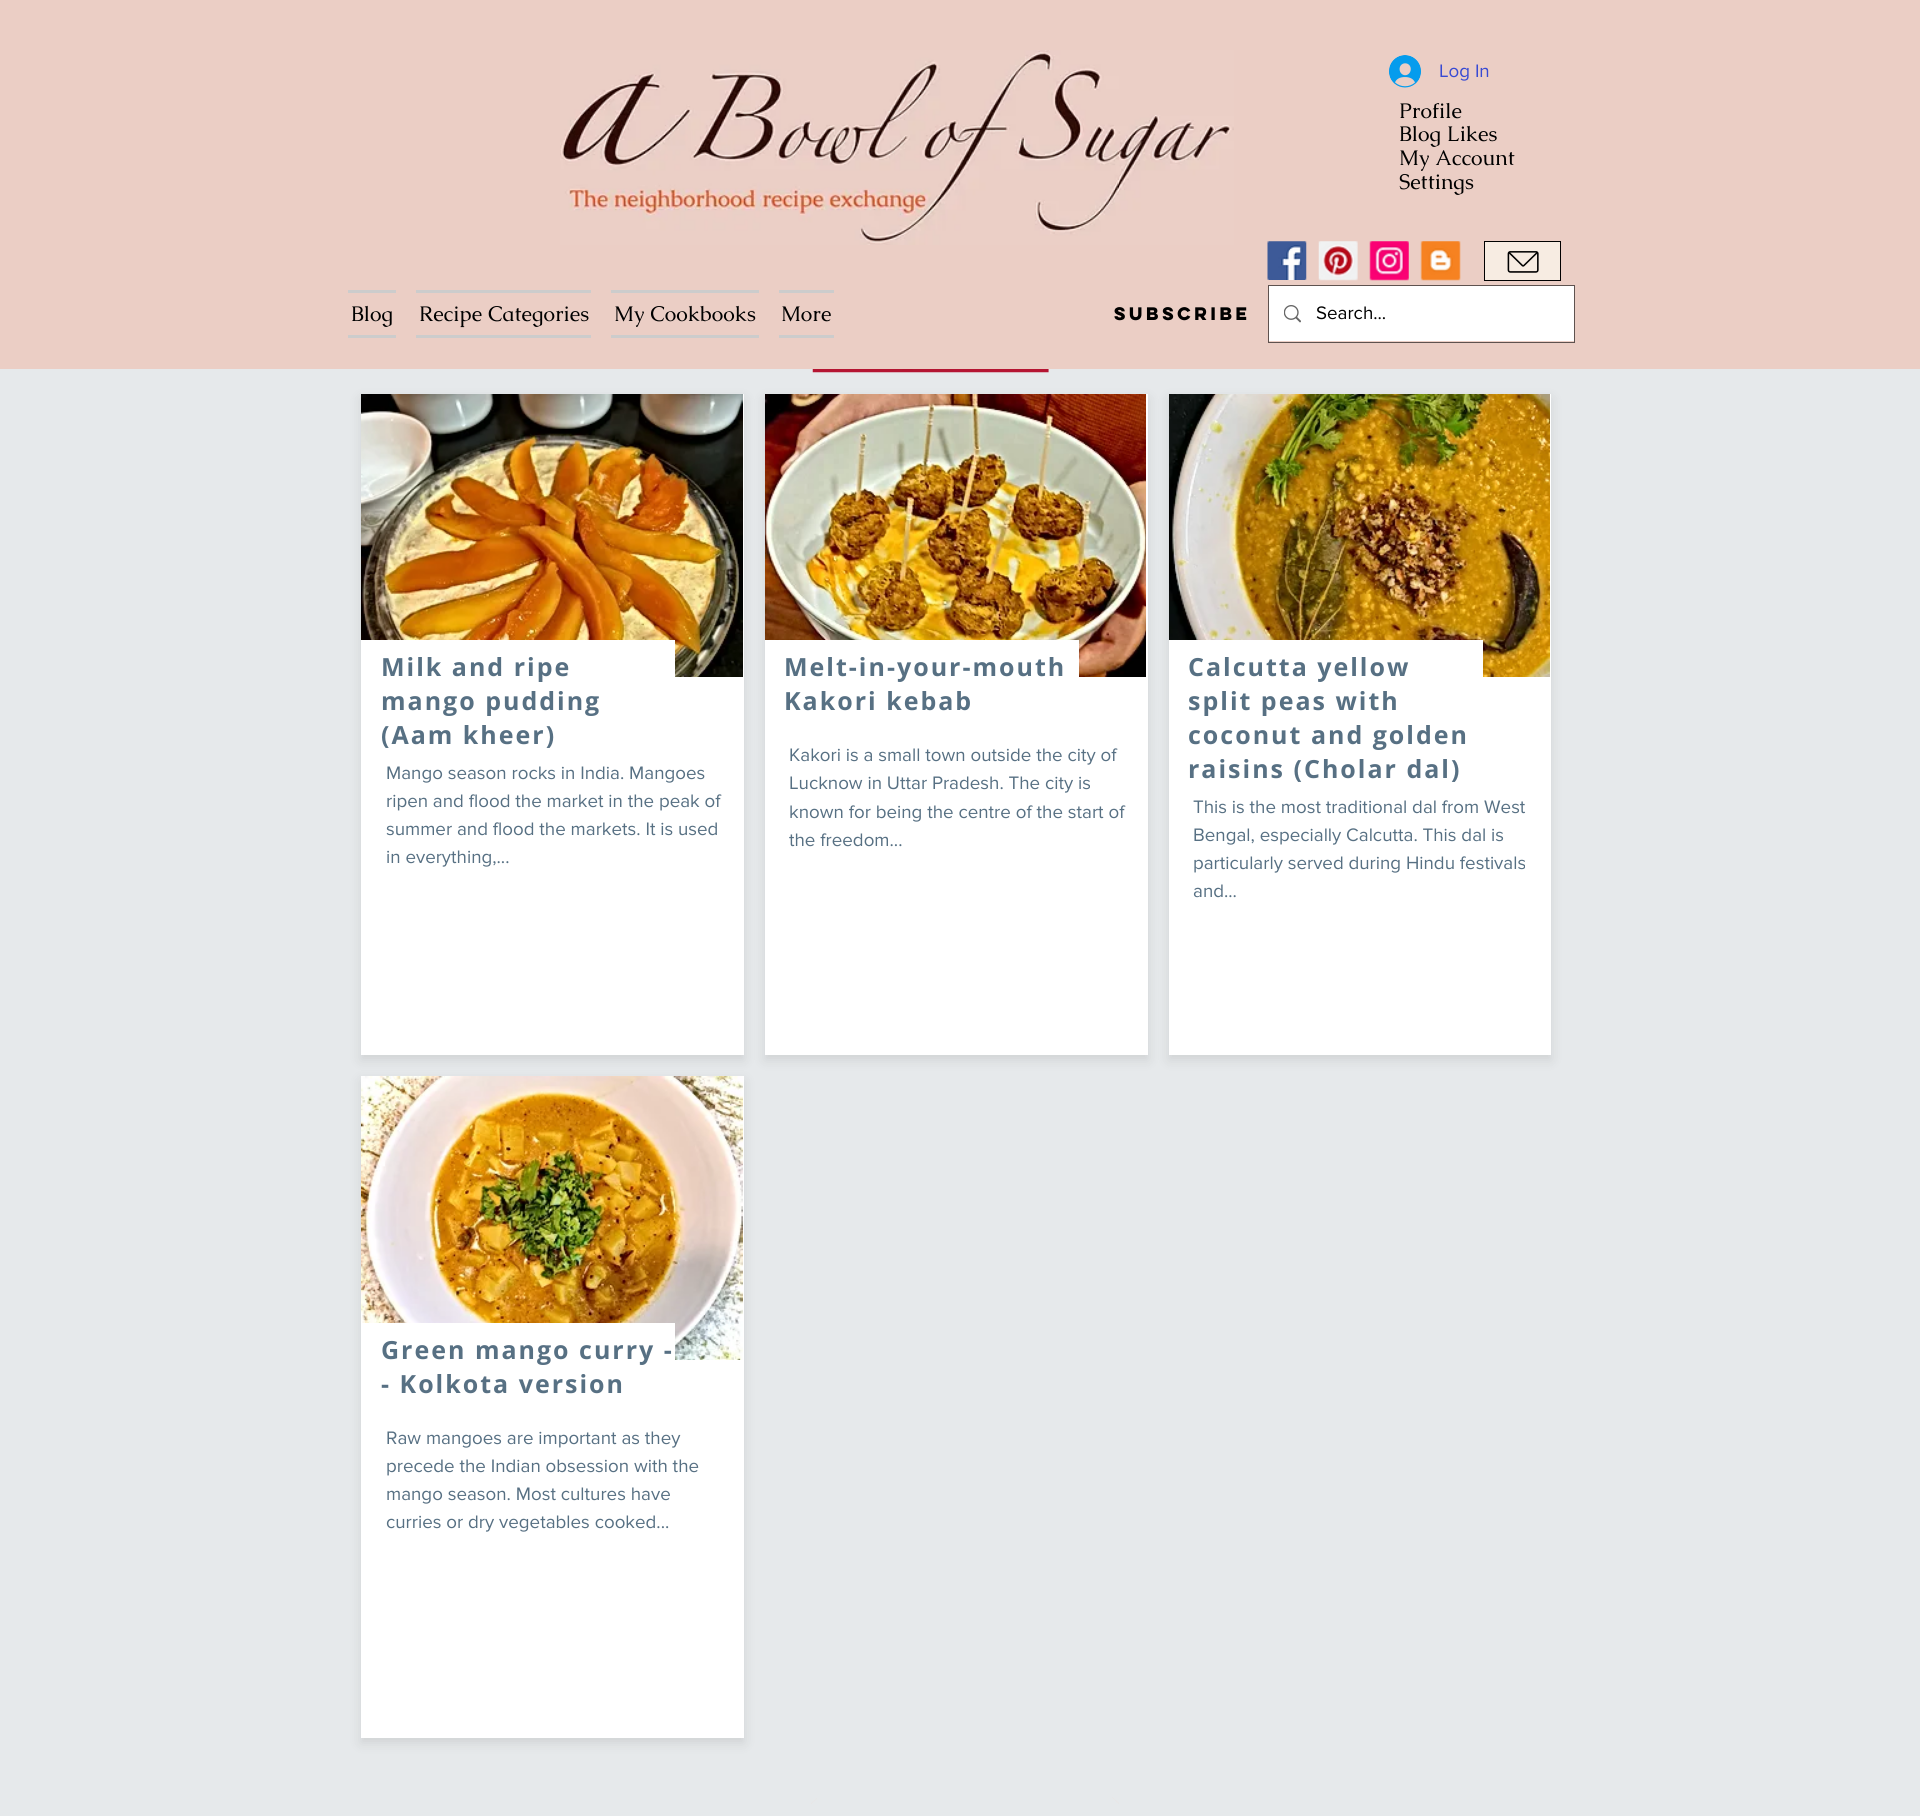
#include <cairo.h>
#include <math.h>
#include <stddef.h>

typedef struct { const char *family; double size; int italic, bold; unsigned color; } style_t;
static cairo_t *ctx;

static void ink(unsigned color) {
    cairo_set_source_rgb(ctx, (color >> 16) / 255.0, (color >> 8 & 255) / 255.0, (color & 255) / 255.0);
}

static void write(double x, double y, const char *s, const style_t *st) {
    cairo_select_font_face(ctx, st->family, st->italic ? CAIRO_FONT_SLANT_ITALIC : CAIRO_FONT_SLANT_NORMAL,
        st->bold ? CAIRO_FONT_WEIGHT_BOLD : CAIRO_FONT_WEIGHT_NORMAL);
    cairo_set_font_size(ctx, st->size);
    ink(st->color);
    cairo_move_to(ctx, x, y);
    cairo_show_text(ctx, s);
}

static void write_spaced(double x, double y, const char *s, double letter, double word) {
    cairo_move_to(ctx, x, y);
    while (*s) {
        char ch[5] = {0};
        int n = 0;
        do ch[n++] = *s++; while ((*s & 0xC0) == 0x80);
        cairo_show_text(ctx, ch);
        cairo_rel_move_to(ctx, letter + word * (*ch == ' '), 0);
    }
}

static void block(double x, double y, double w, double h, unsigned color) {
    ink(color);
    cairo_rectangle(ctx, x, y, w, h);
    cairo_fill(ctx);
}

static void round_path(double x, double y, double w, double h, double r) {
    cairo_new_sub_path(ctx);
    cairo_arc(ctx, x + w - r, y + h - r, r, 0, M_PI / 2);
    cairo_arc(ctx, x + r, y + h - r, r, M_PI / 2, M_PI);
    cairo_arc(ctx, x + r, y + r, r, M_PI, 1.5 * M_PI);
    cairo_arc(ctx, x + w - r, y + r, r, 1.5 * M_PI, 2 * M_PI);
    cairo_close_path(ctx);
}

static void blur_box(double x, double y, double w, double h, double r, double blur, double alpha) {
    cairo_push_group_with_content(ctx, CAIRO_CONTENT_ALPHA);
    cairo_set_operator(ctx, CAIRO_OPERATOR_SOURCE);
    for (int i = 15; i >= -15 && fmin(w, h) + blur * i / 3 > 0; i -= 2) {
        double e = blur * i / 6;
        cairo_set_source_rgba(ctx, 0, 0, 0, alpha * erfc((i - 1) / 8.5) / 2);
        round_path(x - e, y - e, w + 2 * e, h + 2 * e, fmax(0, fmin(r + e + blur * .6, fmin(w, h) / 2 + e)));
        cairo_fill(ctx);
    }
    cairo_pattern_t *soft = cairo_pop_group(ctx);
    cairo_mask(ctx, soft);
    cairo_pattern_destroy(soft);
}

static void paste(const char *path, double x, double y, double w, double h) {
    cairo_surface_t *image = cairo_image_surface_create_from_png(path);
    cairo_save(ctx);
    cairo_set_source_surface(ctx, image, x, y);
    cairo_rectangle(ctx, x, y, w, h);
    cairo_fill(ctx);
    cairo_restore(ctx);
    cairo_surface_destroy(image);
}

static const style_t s1 = {"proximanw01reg", 18.75, 0, 0, 0x384ad3};
static const style_t s2 = {"Caudex", 21.25, 0, 0, 0x000000};
static const style_t s3 = {"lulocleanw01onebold", 16.25, 0, 1, 0x000000};
static const style_t s4 = {"proximanw01reg", 18.75, 0, 0, 0x000000};
static const style_t s5 = {"proximanw01reg", 18.75, 0, 0, 0x577083};

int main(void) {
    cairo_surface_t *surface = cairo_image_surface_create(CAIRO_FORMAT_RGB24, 1920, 1816);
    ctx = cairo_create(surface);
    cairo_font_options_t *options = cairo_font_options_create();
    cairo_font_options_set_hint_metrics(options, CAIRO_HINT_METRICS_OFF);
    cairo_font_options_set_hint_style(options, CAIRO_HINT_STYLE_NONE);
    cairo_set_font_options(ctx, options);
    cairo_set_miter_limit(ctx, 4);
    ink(0xe6e9eb);
    cairo_paint(ctx);
    block(0, 0, 1920, 369, 0xebcec5);
    paste("pic1.png", 560, 50, 674, 195);
    paste("pic2.png", 1389, 55, 32, 33);
    write(1439, 77, "Log In", &s1);
    write(1399, 118, "Profile", &s2);
    write(1399, 141, "Blog Likes", &s2);
    write(1399, 165, "My Account", &s2);
    write(1399, 189, "Settings", &s2);
    paste("pic3.png", 1267, 241, 40, 39);
    paste("pic4.png", 1318, 241, 40, 40);
    paste("pic5.png", 1369, 241, 40, 40);
    paste("pic6.png", 1420, 241, 41, 40);
    ink(0xf7ece2);
    cairo_rectangle(ctx, 1484.5, 241.5, 76, 39);
    cairo_fill_preserve(ctx);
    ink(0x000000);
    cairo_set_line_width(ctx, 1);
    cairo_stroke(ctx);
    paste("pic7.png", 1507, 251, 32, 22);
    block(348, 290, 48, 3, 0xcccccc);
    block(348, 335, 48, 3, 0xcccccc);
    write(351, 321, "Blog", &s2);
    block(416, 290, 175, 3, 0xcccccc);
    block(416, 335, 175, 3, 0xcccccc);
    write(419, 321, "Recipe Categories", &s2);
    block(611, 290, 148, 3, 0xcccccc);
    block(611, 335, 148, 3, 0xcccccc);
    write(614, 321, "My Cookbooks", &s2);
    block(779, 290, 55, 3, 0xcccccc);
    block(779, 335, 55, 3, 0xcccccc);
    write(781, 321, "More", &s2);
    write(1114, 320, "Subscribe", &s3);
    cairo_rectangle(ctx, 1268.5, 285.5, 306, 57);
    ink(0x5e524f);
    cairo_stroke(ctx);
    block(1269, 286, 305, 55, 0xffffff);
    paste("pic8.png", 1284, 305, 17, 18);
    write(1316, 319, "Search...", &s4);
    paste("pic9.png", 812, 369, 237, 4);
    ink(0x000000);
    blur_box(361, 399, 383, 661, 0, 6, 0.1);
    block(361, 394, 383, 661, 0xffffff);
    paste("pic10.png", 361, 394, 382, 283);
    block(361, 640, 314, 37, 0xffffff);
    cairo_select_font_face(ctx, "Open Sans", CAIRO_FONT_SLANT_NORMAL, CAIRO_FONT_WEIGHT_BOLD);
    cairo_set_font_size(ctx, 25);
    ink(0x577083);
    write_spaced(381, 676, "Milk and ripe", 2, 0);
    write_spaced(381, 710, "mango pudding", 2, 0);
    write_spaced(381, 744, "(Aam kheer)", 2, 0);
    write(386, 779, "Mango season rocks in India. Mangoes", &s5);
    write(386, 807, "ripen and flood the market in the peak of", &s5);
    write(386, 835, "summer and flood the markets. It is used", &s5);
    write(386, 863, "in everything,...", &s5);
    ink(0x000000);
    blur_box(361, 1081, 383, 662, 0, 6, 0.1);
    block(361, 1076, 383, 662, 0xffffff);
    paste("pic11.png", 361, 1076, 382, 284);
    block(361, 1323, 314, 37, 0xffffff);
    cairo_select_font_face(ctx, "Open Sans", CAIRO_FONT_SLANT_NORMAL, CAIRO_FONT_WEIGHT_BOLD);
    cairo_set_font_size(ctx, 25);
    ink(0x577083);
    write_spaced(381, 1359, "Green mango curry -", 2, 0);
    write_spaced(381, 1393, "- Kolkota version", 2, 0);
    write(386, 1444, "Raw mangoes are important as they", &s5);
    write(386, 1472, "precede the Indian obsession with the", &s5);
    write(386, 1500, "mango season. Most cultures have", &s5);
    write(386, 1528, "curries or dry vegetables cooked...", &s5);
    ink(0x000000);
    blur_box(765, 399, 383, 661, 0, 6, 0.1);
    block(765, 394, 383, 661, 0xffffff);
    paste("pic12.png", 765, 394, 381, 283);
    block(765, 640, 314, 37, 0xffffff);
    cairo_select_font_face(ctx, "Open Sans", CAIRO_FONT_SLANT_NORMAL, CAIRO_FONT_WEIGHT_BOLD);
    cairo_set_font_size(ctx, 25);
    ink(0x577083);
    write_spaced(784, 676, "Melt-in-your-mouth", 2, 0);
    write_spaced(784, 710, "Kakori kebab", 2, 0);
    write(789, 761, "Kakori is a small town outside the city of", &s5);
    write(789, 789, "Lucknow in Uttar Pradesh. The city is", &s5);
    write(789, 818, "known for being the centre of the start of", &s5);
    write(789, 846, "the freedom...", &s5);
    ink(0x000000);
    blur_box(1169, 399, 382, 661, 0, 6, 0.1);
    block(1169, 394, 382, 661, 0xffffff);
    paste("pic13.png", 1169, 394, 381, 283);
    block(1169, 640, 314, 37, 0xffffff);
    cairo_select_font_face(ctx, "Open Sans", CAIRO_FONT_SLANT_NORMAL, CAIRO_FONT_WEIGHT_BOLD);
    cairo_set_font_size(ctx, 25);
    ink(0x577083);
    write_spaced(1188, 676, "Calcutta yellow", 2, 0);
    write_spaced(1188, 710, "split peas with", 2, 0);
    write_spaced(1188, 744, "coconut and golden", 2, 0);
    write_spaced(1188, 778, "raisins (Cholar dal)", 2, 0);
    write(1193, 813, "This is the most traditional dal from West", &s5);
    write(1193, 841, "Bengal, especially Calcutta. This dal is", &s5);
    write(1193, 869, "particularly served during Hindu festivals", &s5);
    write(1193, 897, "and...", &s5);
    paste("pic14.png", 811, 1798, 6, 6);
    paste("pic15.png", 1112, 1797, 7, 7);
    cairo_surface_write_to_png(surface, "screenshot.png");
    cairo_font_options_destroy(options);
    cairo_destroy(ctx);
    cairo_surface_destroy(surface);
    return 0;
}
